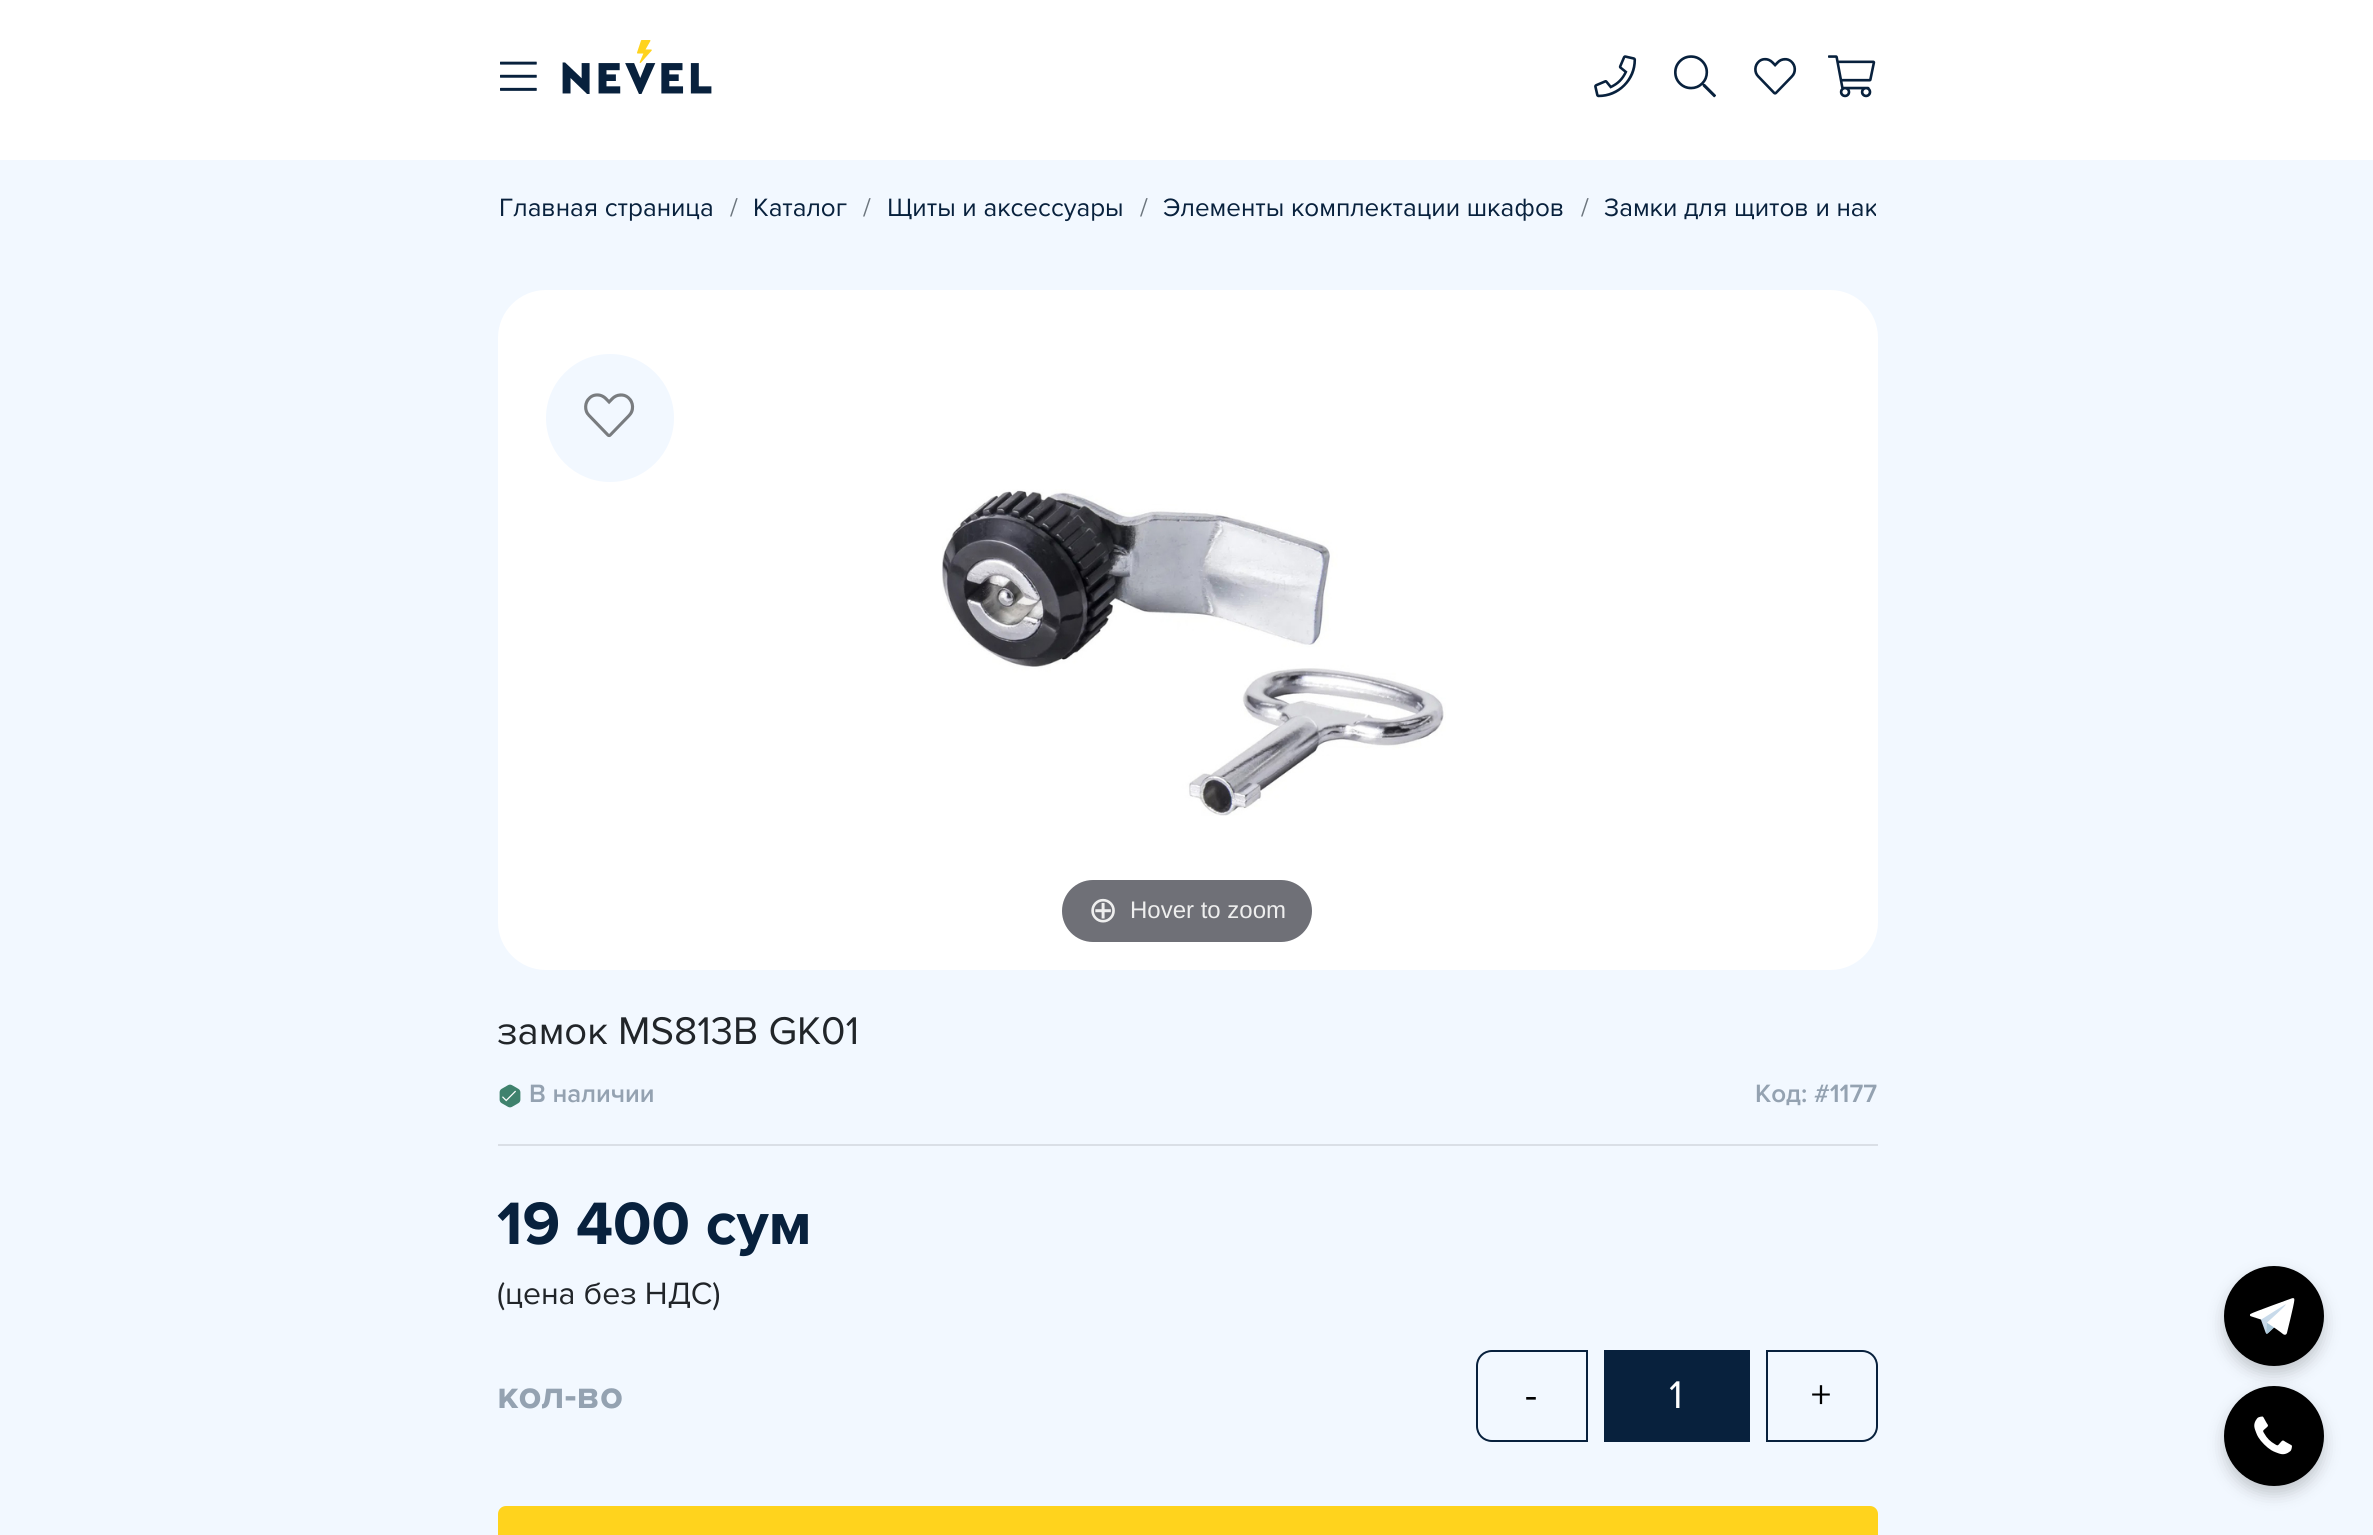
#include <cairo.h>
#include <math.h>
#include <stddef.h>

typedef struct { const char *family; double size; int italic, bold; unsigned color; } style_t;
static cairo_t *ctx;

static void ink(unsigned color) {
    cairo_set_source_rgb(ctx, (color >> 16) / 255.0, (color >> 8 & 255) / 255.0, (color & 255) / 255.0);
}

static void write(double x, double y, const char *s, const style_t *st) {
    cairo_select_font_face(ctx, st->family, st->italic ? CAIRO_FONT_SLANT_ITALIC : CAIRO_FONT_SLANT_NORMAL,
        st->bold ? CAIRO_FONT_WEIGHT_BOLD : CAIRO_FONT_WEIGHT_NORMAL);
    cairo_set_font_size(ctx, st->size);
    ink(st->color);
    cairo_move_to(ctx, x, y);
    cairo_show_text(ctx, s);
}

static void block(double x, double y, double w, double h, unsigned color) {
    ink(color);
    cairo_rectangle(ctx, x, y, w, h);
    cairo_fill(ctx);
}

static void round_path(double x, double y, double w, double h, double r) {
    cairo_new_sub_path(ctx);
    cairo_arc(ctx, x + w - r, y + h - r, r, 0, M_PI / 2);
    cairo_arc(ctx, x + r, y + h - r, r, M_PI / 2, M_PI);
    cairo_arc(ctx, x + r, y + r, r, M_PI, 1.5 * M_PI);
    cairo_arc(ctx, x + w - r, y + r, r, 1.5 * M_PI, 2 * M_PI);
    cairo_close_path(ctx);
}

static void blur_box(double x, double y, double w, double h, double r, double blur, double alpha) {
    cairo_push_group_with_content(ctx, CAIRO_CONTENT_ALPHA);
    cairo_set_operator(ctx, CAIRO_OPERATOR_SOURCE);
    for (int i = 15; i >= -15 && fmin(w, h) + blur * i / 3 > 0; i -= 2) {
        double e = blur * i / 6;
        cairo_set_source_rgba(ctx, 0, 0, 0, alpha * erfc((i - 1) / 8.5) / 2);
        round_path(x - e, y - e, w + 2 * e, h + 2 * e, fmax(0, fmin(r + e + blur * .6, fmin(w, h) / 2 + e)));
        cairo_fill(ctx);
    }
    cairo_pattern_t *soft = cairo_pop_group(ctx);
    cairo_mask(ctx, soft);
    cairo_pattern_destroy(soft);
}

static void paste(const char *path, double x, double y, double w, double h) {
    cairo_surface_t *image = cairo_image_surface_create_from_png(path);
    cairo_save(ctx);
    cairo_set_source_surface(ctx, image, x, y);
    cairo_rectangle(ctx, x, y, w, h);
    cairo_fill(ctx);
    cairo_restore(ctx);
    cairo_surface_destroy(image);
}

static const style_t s1 = {"Proxima Nova", 26, 0, 0, 0x08213d};
static const style_t s2 = {"Proxima Nova", 26, 0, 0, 0x6c757d};
static const style_t s3 = {"DejaVu Sans", 36, 0, 0, 0xeeeeee};
static const style_t s4 = {"Liberation Sans", 24, 0, 0, 0xeeeeee};
static const style_t s5 = {"Proxima Nova", 40, 0, 0, 0x212529};
static const style_t s6 = {"Proxima Nova SemiBold", 26, 0, 0, 0x94a2b1};
static const style_t s7 = {"Proxima Nova", 62, 0, 1, 0x08213d};
static const style_t s8 = {"Proxima Nova", 32, 0, 0, 0x212529};
static const style_t s9 = {"Proxima Nova", 40, 0, 1, 0x94a2b1};
static const style_t s10 = {"Proxima Nova", 40, 0, 0, 0x000000};
static const style_t s11 = {"Proxima Nova", 40, 0, 0, 0xffffff};

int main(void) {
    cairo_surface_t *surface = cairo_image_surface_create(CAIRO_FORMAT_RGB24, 2373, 1535);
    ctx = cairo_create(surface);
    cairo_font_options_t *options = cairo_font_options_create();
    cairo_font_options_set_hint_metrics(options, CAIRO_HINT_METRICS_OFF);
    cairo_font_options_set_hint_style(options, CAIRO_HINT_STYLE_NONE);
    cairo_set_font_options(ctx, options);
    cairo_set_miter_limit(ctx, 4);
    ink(0xf2f8ff);
    cairo_paint(ctx);
    block(0, 0, 2373, 160, 0xffffff);
    paste("pic1.png", 500, 61, 37, 30);
    paste("pic2.png", 562, 40, 150, 54);
    paste("pic3.png", 1594, 55, 43, 43);
    paste("pic4.png", 1674, 55, 42, 43);
    paste("pic5.png", 1754, 57, 43, 38);
    paste("pic6.png", 1828, 55, 48, 43);
    write(499, 216, "Главная страница", &s1);
    write(730, 216, "/", &s2);
    write(753, 216, "Каталог", &s1);
    write(863, 216, "/", &s2);
    write(887, 216, "Щиты и аксессуары", &s1);
    write(1140, 216, "/", &s2);
    write(1163, 216, "Элементы комплектации шкафов", &s1);
    write(1581, 216, "/", &s2);
    cairo_save(ctx);
    cairo_rectangle(ctx, 500, 160, 1376, 130);
    cairo_clip(ctx);
    write(1604, 216, "Замки для щитов и нак", &s1);
    cairo_restore(ctx);
    ink(0xffffff);
    round_path(498, 290, 1380, 680, 48);
    cairo_fill(ctx);
    ink(0xf2f8ff);
    cairo_arc(ctx, 610, 418, 64, 0, 2 * M_PI);
    cairo_fill(ctx);
    paste("pic7.png", 584, 393, 51, 45);
    paste("pic8.png", 942, 489, 504, 327);
    ink(0x6f7077);
    round_path(1062, 880, 250, 62, 31);
    cairo_fill(ctx);
    write(1088, 922, "⊕", &s3);
    write(1130, 918, "Hover to zoom", &s4);
    write(497, 1044, "замок MS813B GK01", &s5);
    paste("pic9.png", 499, 1084, 22, 24);
    paste("pic10.png", 502, 1090, 14, 12);
    write(529, 1102, "В наличии", &s6);
    write(1755, 1102, "Код: #1177", &s6);
    block(498, 1144, 1380, 2, 0xdadfe6);
    write(497, 1244, "19 400 сум", &s7);
    write(497, 1304, "(цена без НДС)", &s8);
    write(497, 1408, "кол-во", &s9);
    cairo_new_path(ctx);
    cairo_move_to(ctx, 1492, 1351);
    cairo_line_to(ctx, 1587, 1351);
    cairo_line_to(ctx, 1587, 1441);
    cairo_line_to(ctx, 1492, 1441);
    cairo_curve_to(ctx, 1483.5, 1441, 1477, 1434.5, 1477, 1426);
    cairo_line_to(ctx, 1477, 1366);
    cairo_curve_to(ctx, 1477, 1357.5, 1483.5, 1351, 1492, 1351);
    cairo_close_path(ctx);
    ink(0x08213d);
    cairo_stroke(ctx);
    write(1525, 1408, "-", &s10);
    block(1604, 1350, 146, 92, 0x08213d);
    write(1669, 1408, "1", &s11);
    cairo_new_path(ctx);
    cairo_move_to(ctx, 1767, 1351);
    cairo_line_to(ctx, 1862, 1351);
    cairo_curve_to(ctx, 1870.5, 1351, 1877, 1357.5, 1877, 1366);
    cairo_line_to(ctx, 1877, 1426);
    cairo_curve_to(ctx, 1877, 1434.5, 1870.5, 1441, 1862, 1441);
    cairo_line_to(ctx, 1767, 1441);
    cairo_close_path(ctx);
    ink(0x08213d);
    cairo_stroke(ctx);
    write(1811, 1408, "+", &s10);
    ink(0xffd31d);
    round_path(499, 1507, 1378, 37, 7);
    cairo_fill_preserve(ctx);
    cairo_stroke(ctx);
    ink(0x000000);
    blur_box(2224, 1274, 100, 100, 50, 8, 0.2);
    ink(0x000000);
    cairo_arc(ctx, 2274, 1316, 50, 0, 2 * M_PI);
    cairo_fill(ctx);
    paste("pic11.png", 2250, 1298, 45, 37);
    ink(0x000000);
    blur_box(2224, 1394, 100, 100, 50, 8, 0.2);
    ink(0x000000);
    cairo_arc(ctx, 2274, 1436, 50, 0, 2 * M_PI);
    cairo_fill(ctx);
    paste("pic12.png", 2254, 1416, 38, 39);
    cairo_surface_write_to_png(surface, "screenshot.png");
    cairo_font_options_destroy(options);
    cairo_destroy(ctx);
    cairo_surface_destroy(surface);
    return 0;
}
